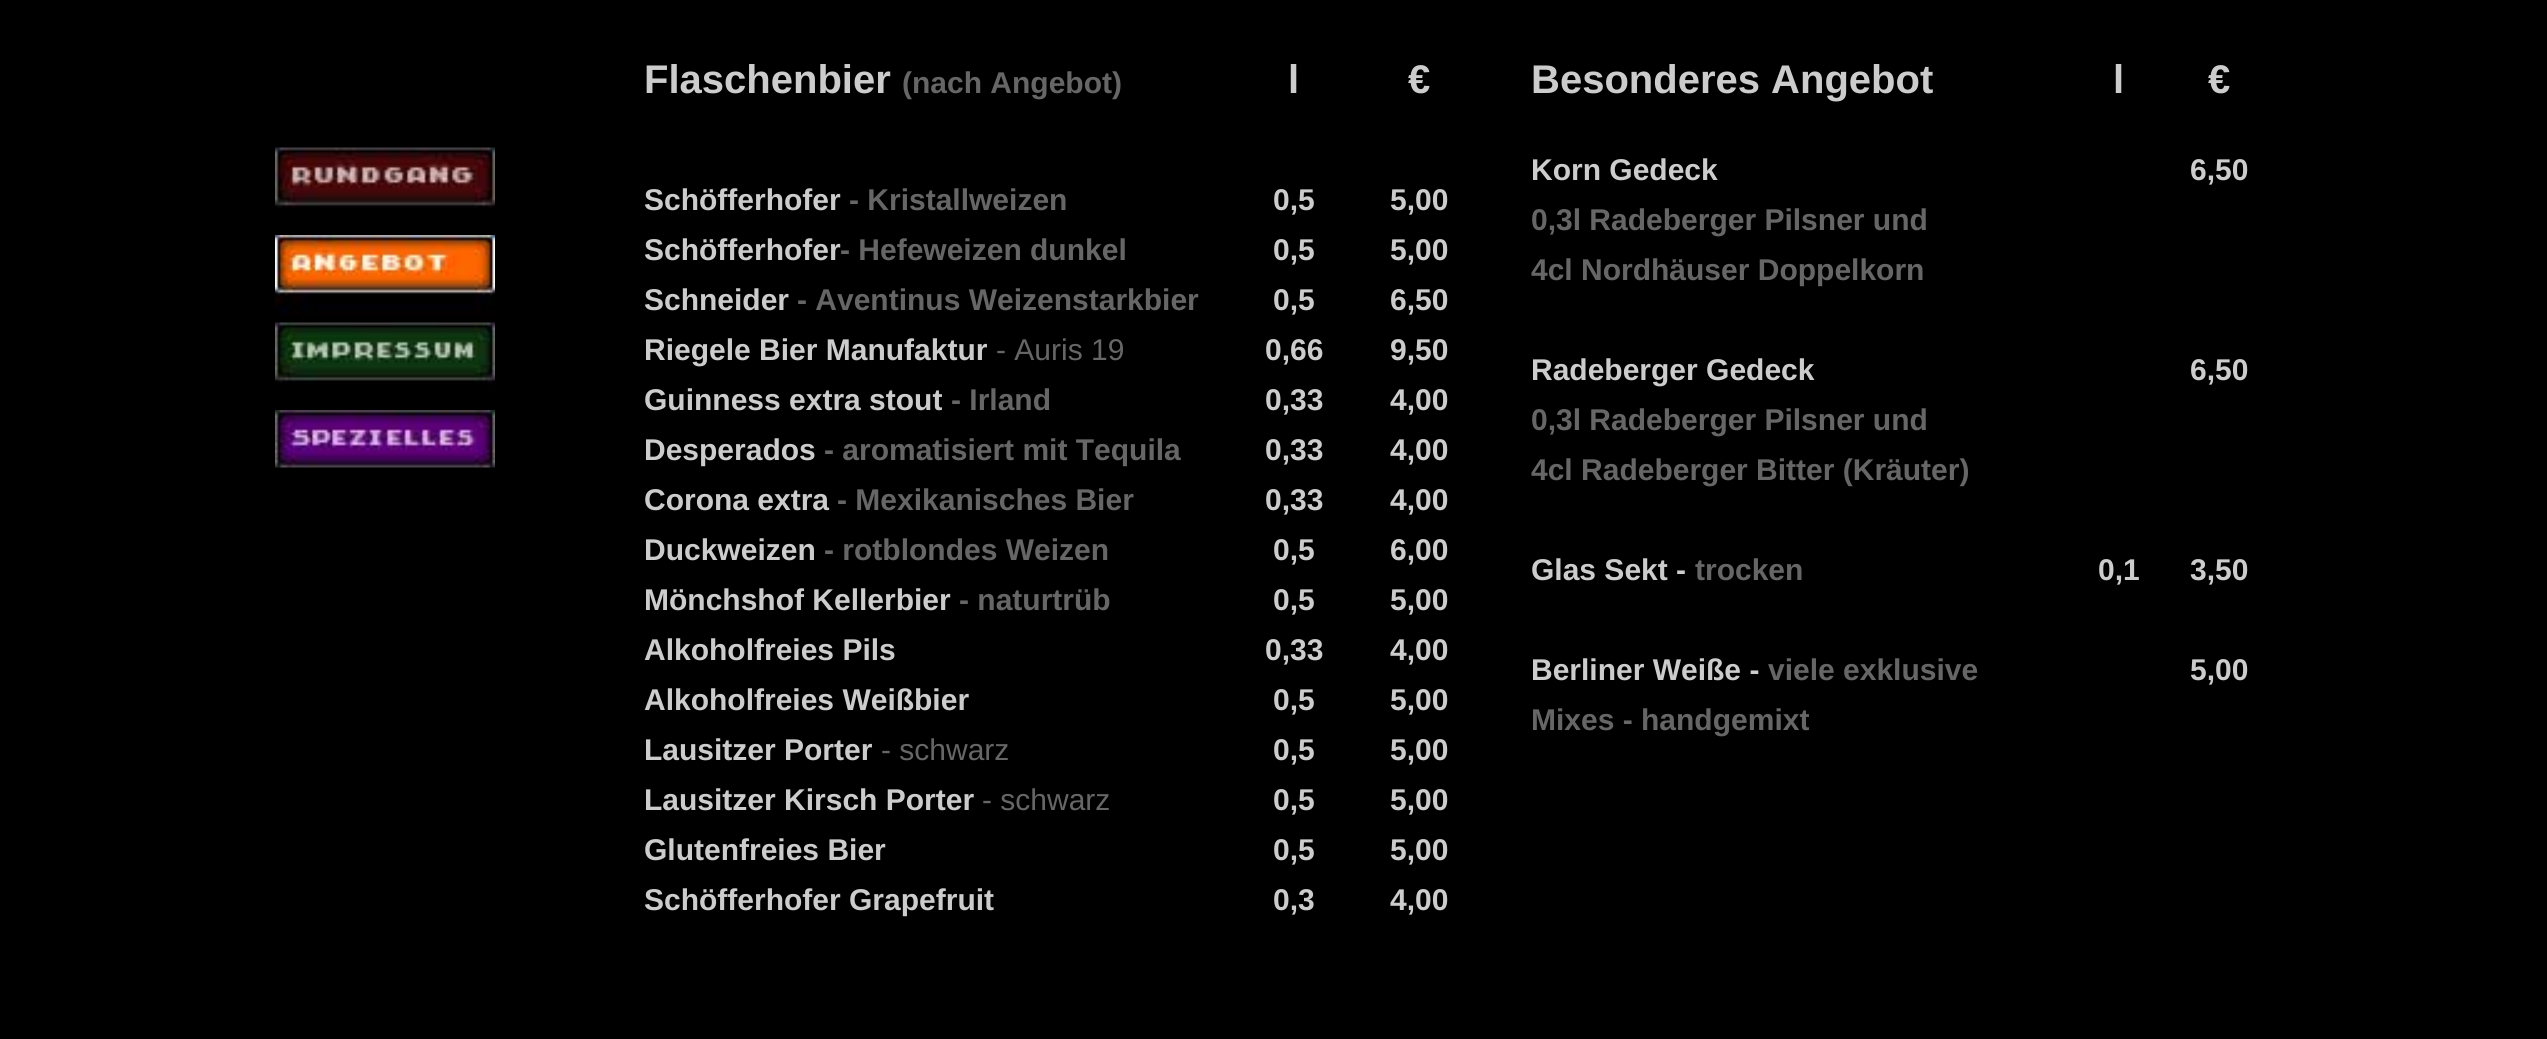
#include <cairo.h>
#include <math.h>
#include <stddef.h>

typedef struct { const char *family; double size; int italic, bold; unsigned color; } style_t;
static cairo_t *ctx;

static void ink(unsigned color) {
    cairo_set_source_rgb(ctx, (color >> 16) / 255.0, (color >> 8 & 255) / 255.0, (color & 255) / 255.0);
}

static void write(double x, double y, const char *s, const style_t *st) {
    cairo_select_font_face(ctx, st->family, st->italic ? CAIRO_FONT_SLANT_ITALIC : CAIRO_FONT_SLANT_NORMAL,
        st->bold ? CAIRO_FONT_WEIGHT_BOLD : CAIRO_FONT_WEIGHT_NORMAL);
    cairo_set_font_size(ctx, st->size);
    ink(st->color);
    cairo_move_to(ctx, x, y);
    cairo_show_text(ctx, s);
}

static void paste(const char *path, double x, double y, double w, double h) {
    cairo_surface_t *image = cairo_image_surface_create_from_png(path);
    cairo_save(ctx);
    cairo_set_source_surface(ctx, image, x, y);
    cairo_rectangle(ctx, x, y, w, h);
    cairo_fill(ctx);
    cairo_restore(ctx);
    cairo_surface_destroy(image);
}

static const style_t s1 = {"Liberation Sans", 40, 0, 1, 0xcccccc};
static const style_t s2 = {"Liberation Sans", 30, 0, 1, 0x666666};
static const style_t s3 = {"Liberation Sans", 30, 0, 1, 0xcccccc};
static const style_t s4 = {"Liberation Sans", 30, 0, 0, 0x666666};

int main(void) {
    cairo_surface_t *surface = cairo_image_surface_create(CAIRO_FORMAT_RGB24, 2547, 1039);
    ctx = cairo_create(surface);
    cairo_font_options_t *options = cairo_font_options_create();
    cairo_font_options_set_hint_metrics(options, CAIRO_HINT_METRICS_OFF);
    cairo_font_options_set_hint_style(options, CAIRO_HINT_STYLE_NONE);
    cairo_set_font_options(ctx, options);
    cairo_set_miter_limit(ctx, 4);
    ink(0x000000);
    cairo_paint(ctx);
    write(644, 93, "Flaschenbier", &s1);
    write(902, 93, "(nach Angebot)", &s2);
    write(1288, 93, "l", &s1);
    write(1408, 93, "€", &s1);
    write(1531, 93, "Besonderes Angebot", &s1);
    write(2113, 93, "l", &s1);
    write(2208, 93, "€", &s1);
    paste("pic1.png", 275, 235, 220, 80);
    paste("pic2.png", 275, 147, 220, 62);
    write(644, 210, "Schöfferhofer", &s3);
    write(849, 210, "- Kristallweizen", &s2);
    write(644, 260, "Schöfferhofer", &s3);
    write(840, 260, "- Hefeweizen dunkel", &s2);
    write(644, 310, "Schneider", &s3);
    write(797, 310, "- Aventinus Weizenstarkbier", &s2);
    write(644, 360, "Riegele Bier Manufaktur", &s3);
    write(996, 360, "- Auris 19", &s4);
    write(644, 410, "Guinness extra stout", &s3);
    write(951, 410, "- Irland", &s2);
    write(644, 460, "Desperados", &s3);
    write(824, 460, "- aromatisiert mit Tequila", &s2);
    write(644, 510, "Corona extra", &s3);
    write(837, 510, "- Mexikanisches Bier", &s2);
    write(644, 560, "Duckweizen", &s3);
    write(824, 560, "- rotblondes Weizen", &s2);
    write(644, 610, "Mönchshof Kellerbier", &s3);
    write(959, 610, "- naturtrüb", &s2);
    write(644, 660, "Alkoholfreies Pils", &s3);
    write(644, 710, "Alkoholfreies Weißbier", &s3);
    write(644, 760, "Lausitzer Porter", &s3);
    write(881, 760, "- schwarz", &s4);
    write(644, 810, "Lausitzer Kirsch Porter", &s3);
    write(982, 810, "- schwarz", &s4);
    write(644, 860, "Glutenfreies Bier", &s3);
    write(644, 910, "Schöfferhofer Grapefruit", &s3);
    write(1273, 210, "0,5", &s3);
    write(1273, 260, "0,5", &s3);
    write(1273, 310, "0,5", &s3);
    write(1265, 360, "0,66", &s3);
    write(1265, 410, "0,33", &s3);
    write(1265, 460, "0,33", &s3);
    write(1265, 510, "0,33", &s3);
    write(1273, 560, "0,5", &s3);
    write(1273, 610, "0,5", &s3);
    write(1265, 660, "0,33", &s3);
    write(1273, 710, "0,5", &s3);
    write(1273, 760, "0,5", &s3);
    write(1273, 810, "0,5", &s3);
    write(1273, 860, "0,5", &s3);
    write(1273, 910, "0,3", &s3);
    write(1390, 210, "5,00", &s3);
    write(1390, 260, "5,00", &s3);
    write(1390, 310, "6,50", &s3);
    write(1390, 360, "9,50", &s3);
    write(1390, 410, "4,00", &s3);
    write(1390, 460, "4,00", &s3);
    write(1390, 510, "4,00", &s3);
    write(1390, 560, "6,00", &s3);
    write(1390, 610, "5,00", &s3);
    write(1390, 660, "4,00", &s3);
    write(1390, 710, "5,00", &s3);
    write(1390, 760, "5,00", &s3);
    write(1390, 810, "5,00", &s3);
    write(1390, 860, "5,00", &s3);
    write(1390, 910, "4,00", &s3);
    write(1531, 180, "Korn Gedeck", &s3);
    write(1531, 230, "0,3l Radeberger Pilsner und", &s2);
    write(1531, 280, "4cl Nordhäuser Doppelkorn", &s2);
    write(1531, 380, "Radeberger Gedeck", &s3);
    write(1531, 430, "0,3l Radeberger Pilsner und", &s2);
    write(1531, 480, "4cl Radeberger Bitter (Kräuter)", &s2);
    write(1531, 580, "Glas Sekt -", &s3);
    write(1695, 580, "trocken", &s2);
    write(1531, 680, "Berliner Weiße -", &s3);
    write(1768, 680, "viele exklusive", &s2);
    write(1531, 730, "Mixes - handgemixt", &s2);
    write(2098, 580, "0,1", &s3);
    write(2190, 180, "6,50", &s3);
    write(2190, 380, "6,50", &s3);
    write(2190, 580, "3,50", &s3);
    write(2190, 680, "5,00", &s3);
    paste("pic3.png", 275, 322, 220, 63);
    paste("pic4.png", 275, 410, 220, 58);
    cairo_surface_write_to_png(surface, "screenshot.png");
    cairo_font_options_destroy(options);
    cairo_destroy(ctx);
    cairo_surface_destroy(surface);
    return 0;
}
